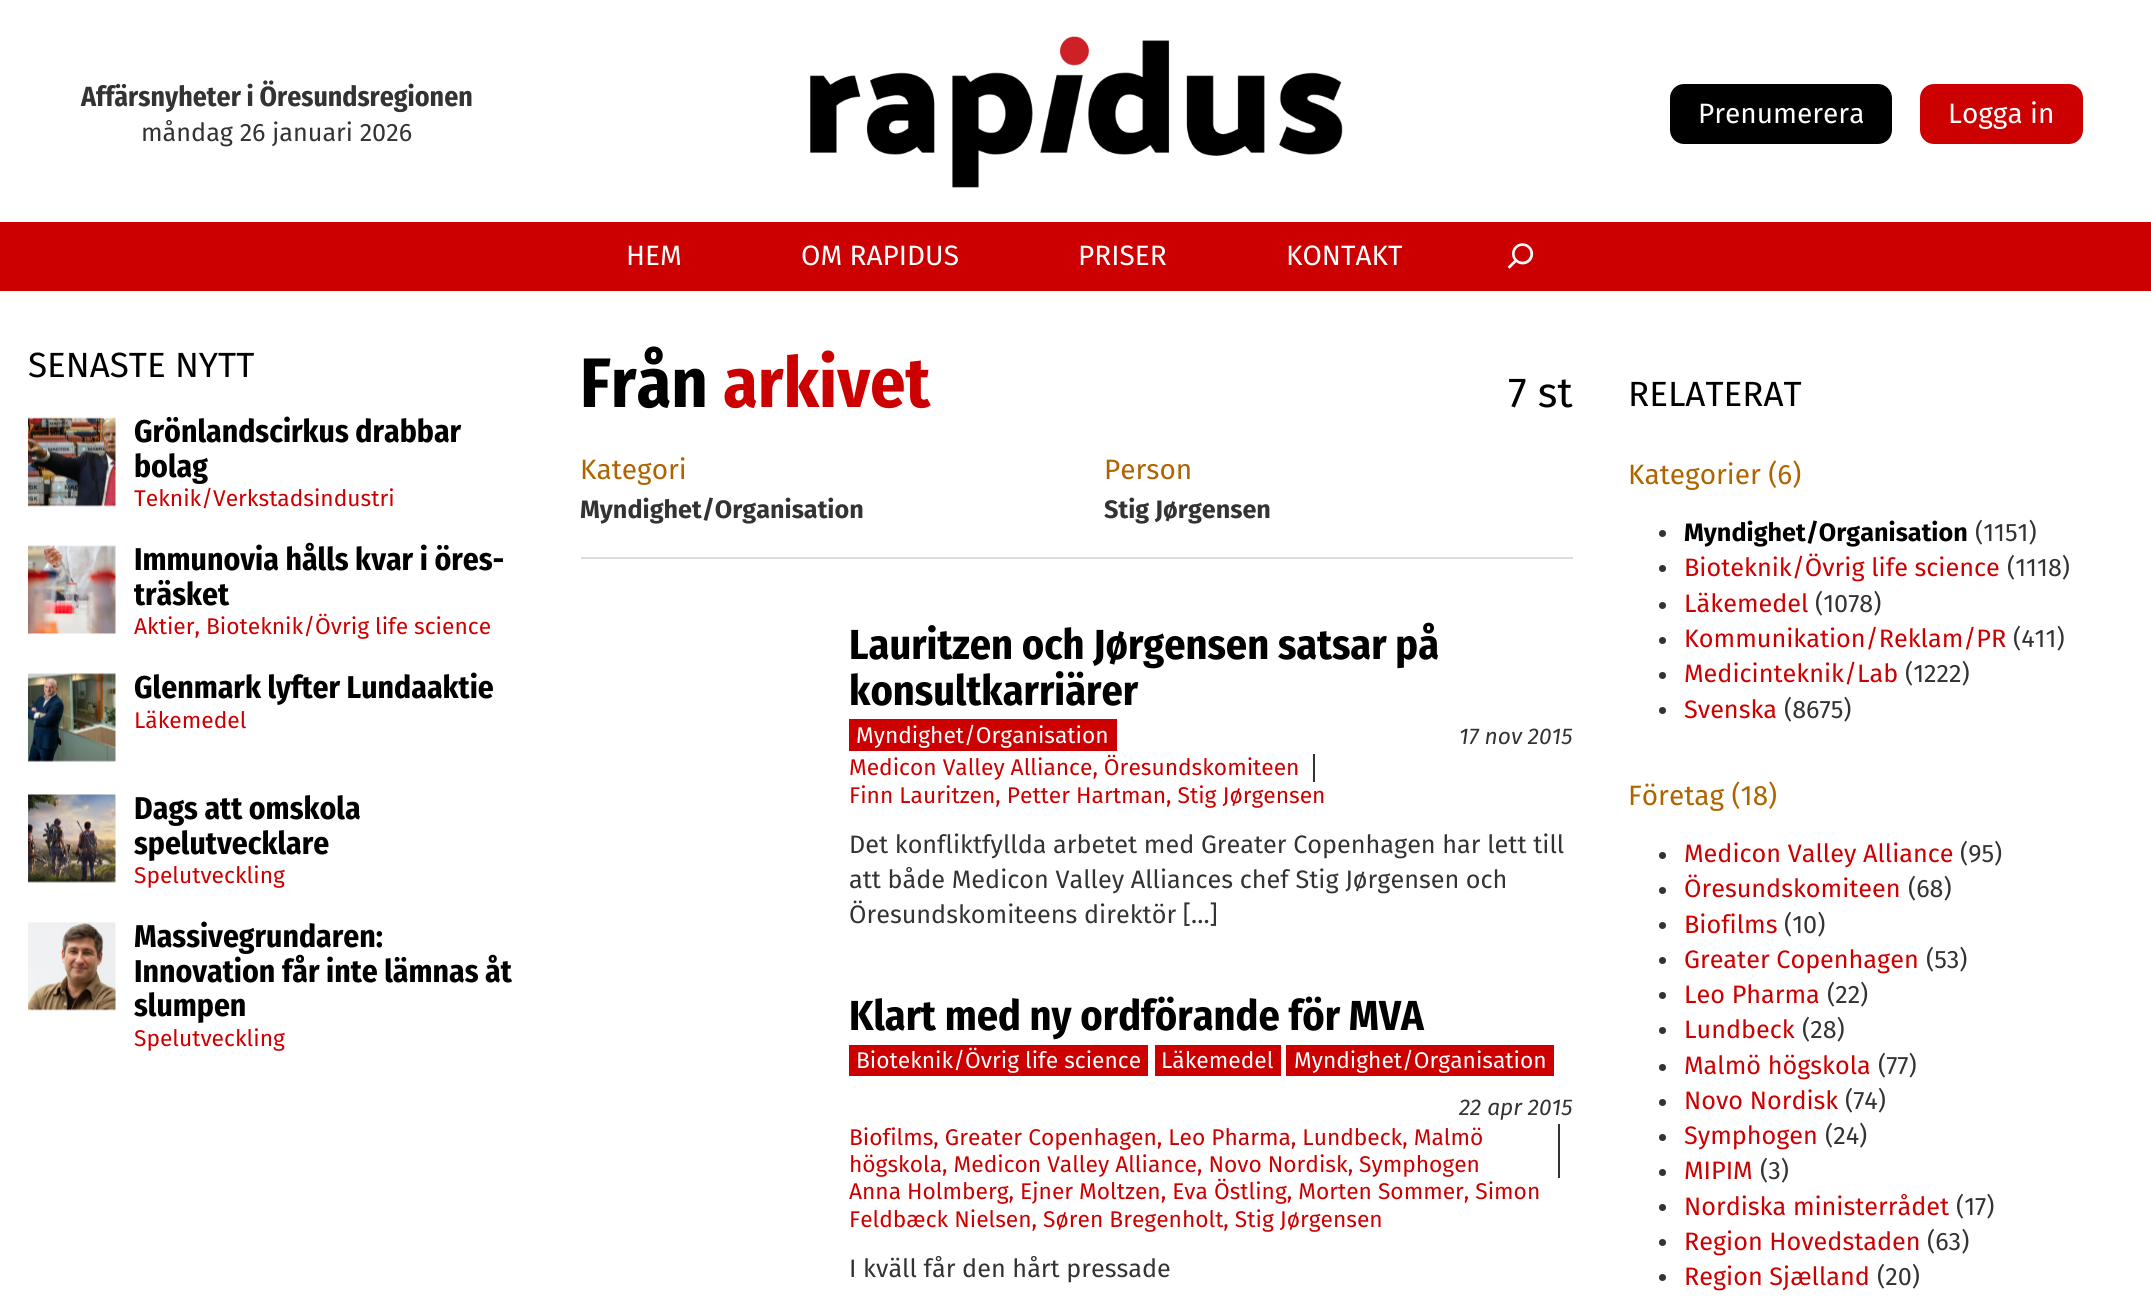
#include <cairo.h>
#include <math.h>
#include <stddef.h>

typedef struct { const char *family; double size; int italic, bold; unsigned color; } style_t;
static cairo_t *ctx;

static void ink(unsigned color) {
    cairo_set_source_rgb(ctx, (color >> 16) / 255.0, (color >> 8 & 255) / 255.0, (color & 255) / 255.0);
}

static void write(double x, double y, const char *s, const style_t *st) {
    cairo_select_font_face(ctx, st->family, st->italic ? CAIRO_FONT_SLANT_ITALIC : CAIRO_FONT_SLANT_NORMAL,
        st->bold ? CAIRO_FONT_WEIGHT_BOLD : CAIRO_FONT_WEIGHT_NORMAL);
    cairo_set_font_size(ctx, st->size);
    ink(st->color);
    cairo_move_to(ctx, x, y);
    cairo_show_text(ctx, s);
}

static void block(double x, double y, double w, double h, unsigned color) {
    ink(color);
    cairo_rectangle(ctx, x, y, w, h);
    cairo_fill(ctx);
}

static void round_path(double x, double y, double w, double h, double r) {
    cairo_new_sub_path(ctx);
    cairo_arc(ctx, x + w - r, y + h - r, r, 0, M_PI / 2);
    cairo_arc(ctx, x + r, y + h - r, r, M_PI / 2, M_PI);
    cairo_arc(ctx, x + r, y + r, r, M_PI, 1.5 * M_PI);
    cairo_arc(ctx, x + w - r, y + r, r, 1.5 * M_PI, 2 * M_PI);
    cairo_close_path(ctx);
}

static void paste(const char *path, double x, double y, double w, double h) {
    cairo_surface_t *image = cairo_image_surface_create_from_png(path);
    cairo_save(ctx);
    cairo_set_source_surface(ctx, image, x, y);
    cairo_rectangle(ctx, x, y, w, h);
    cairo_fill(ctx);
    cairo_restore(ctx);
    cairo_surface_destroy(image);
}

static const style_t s1 = {"Fira Sans Condensed", 27.75, 0, 1, 0x333333};
static const style_t s2 = {"Fira Sans", 25.2, 0, 0, 0x333333};
static const style_t s3 = {"Fira Sans", 28, 0, 0, 0xffffff};
static const style_t s4 = {"Fira Sans", 35, 0, 0, 0x000000};
static const style_t s5 = {"Fira Sans Condensed", 31.5, 0, 1, 0x000000};
static const style_t s6 = {"Fira Sans", 22.75, 0, 0, 0xcc0000};
static const style_t s7 = {"Fira Sans Condensed", 70, 0, 1, 0x000000};
static const style_t s8 = {"Fira Sans Condensed", 70, 0, 1, 0xcc0000};
static const style_t s9 = {"Fira Sans", 42, 0, 0, 0x000000};
static const style_t s10 = {"Fira Sans", 28, 0, 0, 0xaf6400};
static const style_t s11 = {"Fira Sans", 25.2, 0, 1, 0x333333};
static const style_t s12 = {"Fira Sans Condensed", 42, 0, 1, 0x000000};
static const style_t s13 = {"Fira Sans", 22.75, 0, 0, 0xffffff};
static const style_t s14 = {"Fira Sans", 22.75, 1, 0, 0x333333};
static const style_t s15 = {"Fira Sans", 25.2, 0, 1, 0x000000};
static const style_t s16 = {"Fira Sans", 25.2, 0, 0, 0xcc0000};

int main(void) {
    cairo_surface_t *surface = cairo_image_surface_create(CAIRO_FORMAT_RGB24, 2151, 1297);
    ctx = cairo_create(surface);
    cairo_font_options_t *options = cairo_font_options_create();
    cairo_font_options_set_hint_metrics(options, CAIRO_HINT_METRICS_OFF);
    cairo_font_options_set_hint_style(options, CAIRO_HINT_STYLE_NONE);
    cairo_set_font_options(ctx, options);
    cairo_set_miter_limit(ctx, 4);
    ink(0xffffff);
    cairo_paint(ctx);
    write(81, 106, "Affärsnyheter i Öresundsregionen", &s1);
    write(141, 141, "måndag 26 januari 2026", &s2);
    paste("pic1.png", 810, 36, 533, 152);
    ink(0x000000);
    round_path(1670, 84, 222, 60, 14);
    cairo_fill(ctx);
    write(1698, 123, "Prenumerera", &s3);
    ink(0xcc0000);
    round_path(1920, 84, 163, 60, 14);
    cairo_fill(ctx);
    write(1948, 123, "Logga in", &s3);
    block(0, 222, 2151, 69, 0xcc0000);
    write(626, 265, "HEM", &s3);
    write(801, 265, "OM RAPIDUS", &s3);
    write(1078, 265, "PRISER", &s3);
    write(1286, 265, "KONTAKT", &s3);
    paste("pic2.png", 1507, 243, 27, 26);
    write(28, 377, "SENASTE NYTT", &s4);
    paste("pic3.png", 28, 417, 88, 90);
    write(134, 442, "Grönlandscirkus drabbar", &s5);
    write(134, 477, "bolag", &s5);
    write(134, 506, "Teknik/Verkstadsindustri", &s6);
    paste("pic4.png", 28, 545, 88, 89);
    write(134, 570, "Immunovia hålls kvar i öres-", &s5);
    write(134, 605, "träsket", &s5);
    write(134, 634, "Aktier, Bioteknik/Övrig life science", &s6);
    paste("pic5.png", 28, 673, 88, 89);
    write(134, 698, "Glenmark lyfter Lundaaktie", &s5);
    write(134, 728, "Läkemedel", &s6);
    paste("pic6.png", 28, 794, 88, 89);
    write(134, 819, "Dags att omskola", &s5);
    write(134, 854, "spelutvecklare", &s5);
    write(134, 883, "Spelutveckling", &s6);
    paste("pic7.png", 28, 922, 88, 89);
    write(134, 947, "Massivegrundaren:", &s5);
    write(134, 982, "Innovation får inte lämnas åt", &s5);
    write(134, 1016, "slumpen", &s5);
    write(134, 1046, "Spelutveckling", &s6);
    write(580, 407, "Från", &s7);
    write(723, 407, "arkivet", &s8);
    write(1508, 407, "7 st", &s9);
    write(580, 479, "Kategori", &s10);
    write(580, 518, "Myndighet/Organisation", &s11);
    write(1104, 479, "Person", &s10);
    write(1104, 518, "Stig Jørgensen", &s11);
    block(581, 557, 992, 2, 0xdddddd);
    write(849, 659, "Lauritzen och Jørgensen satsar på", &s12);
    write(849, 705, "konsultkarriärer", &s12);
    block(849, 719, 268, 32, 0xcc0000);
    write(856, 743, "Myndighet/Organisation", &s13);
    write(1459, 744, "17 nov 2015", &s14);
    block(1313, 754, 2, 28, 0x333333);
    write(849, 775, "Medicon Valley Alliance, Öresundskomiteen", &s6);
    write(849, 803, "Finn Lauritzen, Petter Hartman, Stig Jørgensen", &s6);
    write(849, 853, "Det konfliktfyllda arbetet med Greater Copenhagen har lett till", &s2);
    write(849, 888, "att både Medicon Valley Alliances chef Stig Jørgensen och", &s2);
    write(849, 923, "Öresundskomiteens direktör […]", &s2);
    write(849, 1030, "Klart med ny ordförande för MVA", &s12);
    block(849, 1045, 299, 31, 0xcc0000);
    write(856, 1068, "Bioteknik/Övrig life science", &s13);
    block(1155, 1045, 126, 31, 0xcc0000);
    write(1161, 1068, "Läkemedel", &s13);
    block(1286, 1045, 268, 31, 0xcc0000);
    write(1294, 1068, "Myndighet/Organisation", &s13);
    write(1459, 1115, "22 apr 2015", &s14);
    block(1558, 1124, 2, 54, 0x333333);
    write(849, 1145, "Biofilms, Greater Copenhagen, Leo Pharma, Lundbeck, Malmö", &s6);
    write(849, 1172, "högskola, Medicon Valley Alliance, Novo Nordisk, Symphogen", &s6);
    write(849, 1199, "Anna Holmberg, Ejner Moltzen, Eva Östling, Morten Sommer, Simon", &s6);
    write(849, 1227, "Feldbæck Nielsen, Søren Bregenholt, Stig Jørgensen", &s6);
    write(849, 1277, "I kväll får den hårt pressade", &s2);
    write(1628, 406, "RELATERAT", &s4);
    write(1628, 484, "Kategorier (6)", &s10);
    ink(0x333333);
    cairo_new_path(ctx);
    cairo_arc(ctx, 1662.5, 533.5, 3.5, 0, 2 * M_PI);
    cairo_fill(ctx);
    write(1684, 541, "Myndighet/Organisation", &s15);
    write(1975, 541, "(1151)", &s2);
    cairo_new_path(ctx);
    cairo_arc(ctx, 1662.5, 568.5, 3.5, 0, 2 * M_PI);
    cairo_fill(ctx);
    write(1684, 576, "Bioteknik/Övrig life science", &s16);
    write(2007, 576, "(1118)", &s2);
    cairo_new_path(ctx);
    cairo_arc(ctx, 1662.5, 605.5, 3.5, 0, 2 * M_PI);
    cairo_fill(ctx);
    write(1684, 612, "Läkemedel", &s16);
    write(1815, 612, "(1078)", &s2);
    cairo_new_path(ctx);
    cairo_arc(ctx, 1662.5, 640.5, 3.5, 0, 2 * M_PI);
    cairo_fill(ctx);
    write(1684, 647, "Kommunikation/Reklam/PR", &s16);
    write(2013, 647, "(411)", &s2);
    cairo_new_path(ctx);
    cairo_arc(ctx, 1662.5, 675.5, 3.5, 0, 2 * M_PI);
    cairo_fill(ctx);
    write(1684, 682, "Medicinteknik/Lab", &s16);
    write(1905, 682, "(1222)", &s2);
    cairo_new_path(ctx);
    cairo_arc(ctx, 1662.5, 710.5, 3.5, 0, 2 * M_PI);
    cairo_fill(ctx);
    write(1684, 718, "Svenska", &s16);
    write(1784, 718, "(8675)", &s2);
    write(1628, 805, "Företag (18)", &s10);
    ink(0x333333);
    cairo_new_path(ctx);
    cairo_arc(ctx, 1662.5, 855.5, 3.5, 0, 2 * M_PI);
    cairo_fill(ctx);
    write(1684, 862, "Medicon Valley Alliance", &s16);
    write(1960, 862, "(95)", &s2);
    cairo_new_path(ctx);
    cairo_arc(ctx, 1662.5, 890.5, 3.5, 0, 2 * M_PI);
    cairo_fill(ctx);
    write(1684, 897, "Öresundskomiteen", &s16);
    write(1908, 897, "(68)", &s2);
    cairo_new_path(ctx);
    cairo_arc(ctx, 1662.5, 925.5, 3.5, 0, 2 * M_PI);
    cairo_fill(ctx);
    write(1684, 933, "Biofilms", &s16);
    write(1784, 933, "(10)", &s2);
    cairo_new_path(ctx);
    cairo_arc(ctx, 1662.5, 960.5, 3.5, 0, 2 * M_PI);
    cairo_fill(ctx);
    write(1684, 968, "Greater Copenhagen", &s16);
    write(1926, 968, "(53)", &s2);
    cairo_new_path(ctx);
    cairo_arc(ctx, 1662.5, 995.5, 3.5, 0, 2 * M_PI);
    cairo_fill(ctx);
    write(1684, 1003, "Leo Pharma", &s16);
    write(1827, 1003, "(22)", &s2);
    cairo_new_path(ctx);
    cairo_arc(ctx, 1662.5, 1030.5, 3.5, 0, 2 * M_PI);
    cairo_fill(ctx);
    write(1684, 1038, "Lundbeck", &s16);
    write(1802, 1038, "(28)", &s2);
    cairo_new_path(ctx);
    cairo_arc(ctx, 1662.5, 1067.5, 3.5, 0, 2 * M_PI);
    cairo_fill(ctx);
    write(1684, 1074, "Malmö högskola", &s16);
    write(1878, 1074, "(77)", &s2);
    cairo_new_path(ctx);
    cairo_arc(ctx, 1662.5, 1102.5, 3.5, 0, 2 * M_PI);
    cairo_fill(ctx);
    write(1684, 1109, "Novo Nordisk", &s16);
    write(1845, 1109, "(74)", &s2);
    cairo_new_path(ctx);
    cairo_arc(ctx, 1662.5, 1137.5, 3.5, 0, 2 * M_PI);
    cairo_fill(ctx);
    write(1684, 1144, "Symphogen", &s16);
    write(1825, 1144, "(24)", &s2);
    cairo_new_path(ctx);
    cairo_arc(ctx, 1662.5, 1172.5, 3.5, 0, 2 * M_PI);
    cairo_fill(ctx);
    write(1684, 1179, "MIPIM", &s16);
    write(1760, 1179, "(3)", &s2);
    cairo_new_path(ctx);
    cairo_arc(ctx, 1662.5, 1207.5, 3.5, 0, 2 * M_PI);
    cairo_fill(ctx);
    write(1684, 1215, "Nordiska ministerrådet", &s16);
    write(1956, 1215, "(17)", &s2);
    cairo_new_path(ctx);
    cairo_arc(ctx, 1662.5, 1242.5, 3.5, 0, 2 * M_PI);
    cairo_fill(ctx);
    write(1684, 1250, "Region Hovedstaden", &s16);
    write(1927, 1250, "(63)", &s2);
    cairo_new_path(ctx);
    cairo_arc(ctx, 1662.5, 1277.5, 3.5, 0, 2 * M_PI);
    cairo_fill(ctx);
    write(1684, 1285, "Region Sjælland", &s16);
    write(1877, 1285, "(20)", &s2);
    cairo_surface_write_to_png(surface, "screenshot.png");
    cairo_font_options_destroy(options);
    cairo_destroy(ctx);
    cairo_surface_destroy(surface);
    return 0;
}
